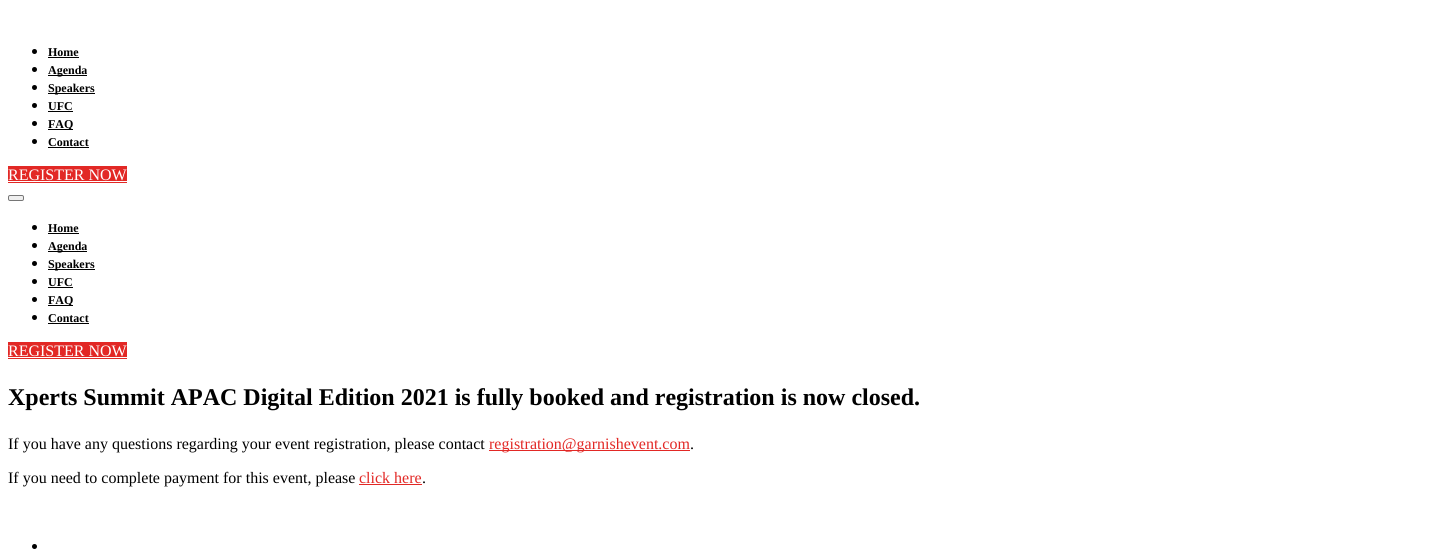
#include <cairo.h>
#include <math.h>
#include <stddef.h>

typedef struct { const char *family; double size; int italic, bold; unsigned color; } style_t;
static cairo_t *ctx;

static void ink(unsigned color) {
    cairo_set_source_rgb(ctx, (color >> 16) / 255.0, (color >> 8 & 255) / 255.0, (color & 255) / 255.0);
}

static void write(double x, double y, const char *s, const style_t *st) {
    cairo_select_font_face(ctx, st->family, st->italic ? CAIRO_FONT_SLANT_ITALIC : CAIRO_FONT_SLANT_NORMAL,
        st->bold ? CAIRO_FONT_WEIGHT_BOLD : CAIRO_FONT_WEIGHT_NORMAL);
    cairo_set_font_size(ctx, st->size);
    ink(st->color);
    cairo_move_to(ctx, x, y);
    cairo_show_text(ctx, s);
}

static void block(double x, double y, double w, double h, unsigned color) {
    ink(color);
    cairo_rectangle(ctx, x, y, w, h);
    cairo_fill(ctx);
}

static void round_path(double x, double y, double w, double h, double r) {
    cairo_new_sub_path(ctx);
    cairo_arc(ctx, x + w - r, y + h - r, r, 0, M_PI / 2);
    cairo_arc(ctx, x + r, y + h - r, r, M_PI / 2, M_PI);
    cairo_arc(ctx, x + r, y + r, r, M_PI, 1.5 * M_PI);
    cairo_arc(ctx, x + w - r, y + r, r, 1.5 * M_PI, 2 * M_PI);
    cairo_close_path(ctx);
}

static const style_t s1 = {"Liberation Serif", 12, 0, 1, 0x000000};
static const style_t s2 = {"Liberation Serif", 16, 0, 0, 0xffffff};
static const style_t s3 = {"Liberation Serif", 24, 0, 1, 0x000000};
static const style_t s4 = {"Liberation Serif", 16, 0, 0, 0x000000};
static const style_t s5 = {"Liberation Serif", 16, 0, 0, 0xe22825};

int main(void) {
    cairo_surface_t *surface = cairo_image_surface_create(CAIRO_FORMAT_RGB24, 1432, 554);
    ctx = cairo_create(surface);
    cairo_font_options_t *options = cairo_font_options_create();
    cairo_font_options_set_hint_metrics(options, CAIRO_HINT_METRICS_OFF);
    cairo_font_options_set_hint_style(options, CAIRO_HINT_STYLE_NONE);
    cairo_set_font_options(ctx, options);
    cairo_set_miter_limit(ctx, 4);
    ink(0xffffff);
    cairo_paint(ctx);
    ink(0x000000);
    cairo_arc(ctx, 34.5, 51.5, 2.5, 0, 2 * M_PI);
    cairo_fill(ctx);
    write(48, 56, "Home", &s1);
    block(48, 57, 31, 1, 0x000000);
    cairo_new_path(ctx);
    cairo_arc(ctx, 34.5, 69.5, 2.5, 0, 2 * M_PI);
    cairo_fill(ctx);
    block(48, 75, 39, 1, 0x000000);
    write(48, 74, "Agenda", &s1);
    cairo_new_path(ctx);
    cairo_arc(ctx, 34.5, 87.5, 2.5, 0, 2 * M_PI);
    cairo_fill(ctx);
    block(48, 93, 47, 1, 0x000000);
    write(48, 92, "Speakers", &s1);
    cairo_new_path(ctx);
    cairo_arc(ctx, 34.5, 105.5, 2.5, 0, 2 * M_PI);
    cairo_fill(ctx);
    write(48, 110, "UFC", &s1);
    block(48, 111, 25, 1, 0x000000);
    cairo_new_path(ctx);
    cairo_arc(ctx, 34.5, 123.5, 2.5, 0, 2 * M_PI);
    cairo_fill(ctx);
    block(48, 129, 25, 1, 0x000000);
    write(48, 128, "FAQ", &s1);
    cairo_new_path(ctx);
    cairo_arc(ctx, 34.5, 141.5, 2.5, 0, 2 * M_PI);
    cairo_fill(ctx);
    write(48, 146, "Contact", &s1);
    block(48, 147, 41, 1, 0x000000);
    block(8, 166, 119, 17, 0xe22825);
    write(8, 180, "REGISTER NOW", &s2);
    block(8, 181, 119, 1, 0xffffff);
    ink(0xefefef);
    round_path(8.5, 195.5, 15, 5, 1.5);
    cairo_fill_preserve(ctx);
    ink(0x767676);
    cairo_set_line_width(ctx, 1);
    cairo_stroke(ctx);
    ink(0x000000);
    cairo_arc(ctx, 34.5, 227.5, 2.5, 0, 2 * M_PI);
    cairo_fill(ctx);
    write(48, 232, "Home", &s1);
    block(48, 233, 31, 1, 0x000000);
    cairo_new_path(ctx);
    cairo_arc(ctx, 34.5, 245.5, 2.5, 0, 2 * M_PI);
    cairo_fill(ctx);
    block(48, 251, 39, 1, 0x000000);
    write(48, 250, "Agenda", &s1);
    cairo_new_path(ctx);
    cairo_arc(ctx, 34.5, 263.5, 2.5, 0, 2 * M_PI);
    cairo_fill(ctx);
    block(48, 269, 47, 1, 0x000000);
    write(48, 268, "Speakers", &s1);
    cairo_new_path(ctx);
    cairo_arc(ctx, 34.5, 281.5, 2.5, 0, 2 * M_PI);
    cairo_fill(ctx);
    write(48, 286, "UFC", &s1);
    block(48, 287, 25, 1, 0x000000);
    cairo_new_path(ctx);
    cairo_arc(ctx, 34.5, 299.5, 2.5, 0, 2 * M_PI);
    cairo_fill(ctx);
    block(48, 305, 25, 1, 0x000000);
    write(48, 304, "FAQ", &s1);
    cairo_new_path(ctx);
    cairo_arc(ctx, 34.5, 317.5, 2.5, 0, 2 * M_PI);
    cairo_fill(ctx);
    write(48, 322, "Contact", &s1);
    block(48, 323, 41, 1, 0x000000);
    block(8, 342, 119, 17, 0xe22825);
    write(8, 356, "REGISTER NOW", &s2);
    block(8, 357, 119, 1, 0xffffff);
    write(8, 405, "Xperts Summit APAC Digital Edition 2021 is fully booked and registration is now closed.", &s3);
    write(8, 449, "If you have any questions regarding your event registration, please contact", &s4);
    block(489, 450, 201, 1, 0xe22825);
    write(489, 449, "registration@garnishevent.com", &s5);
    write(690, 449, ".", &s4);
    write(8, 483, "If you need to complete payment for this event, please", &s4);
    write(359, 483, "click here", &s5);
    block(359, 484, 63, 1, 0xe22825);
    write(422, 483, ".", &s4);
    cairo_new_path(ctx);
    cairo_arc(ctx, 34.5, 546.5, 2.5, 0, 2 * M_PI);
    cairo_fill(ctx);
    cairo_surface_write_to_png(surface, "screenshot.png");
    cairo_font_options_destroy(options);
    cairo_destroy(ctx);
    cairo_surface_destroy(surface);
    return 0;
}
